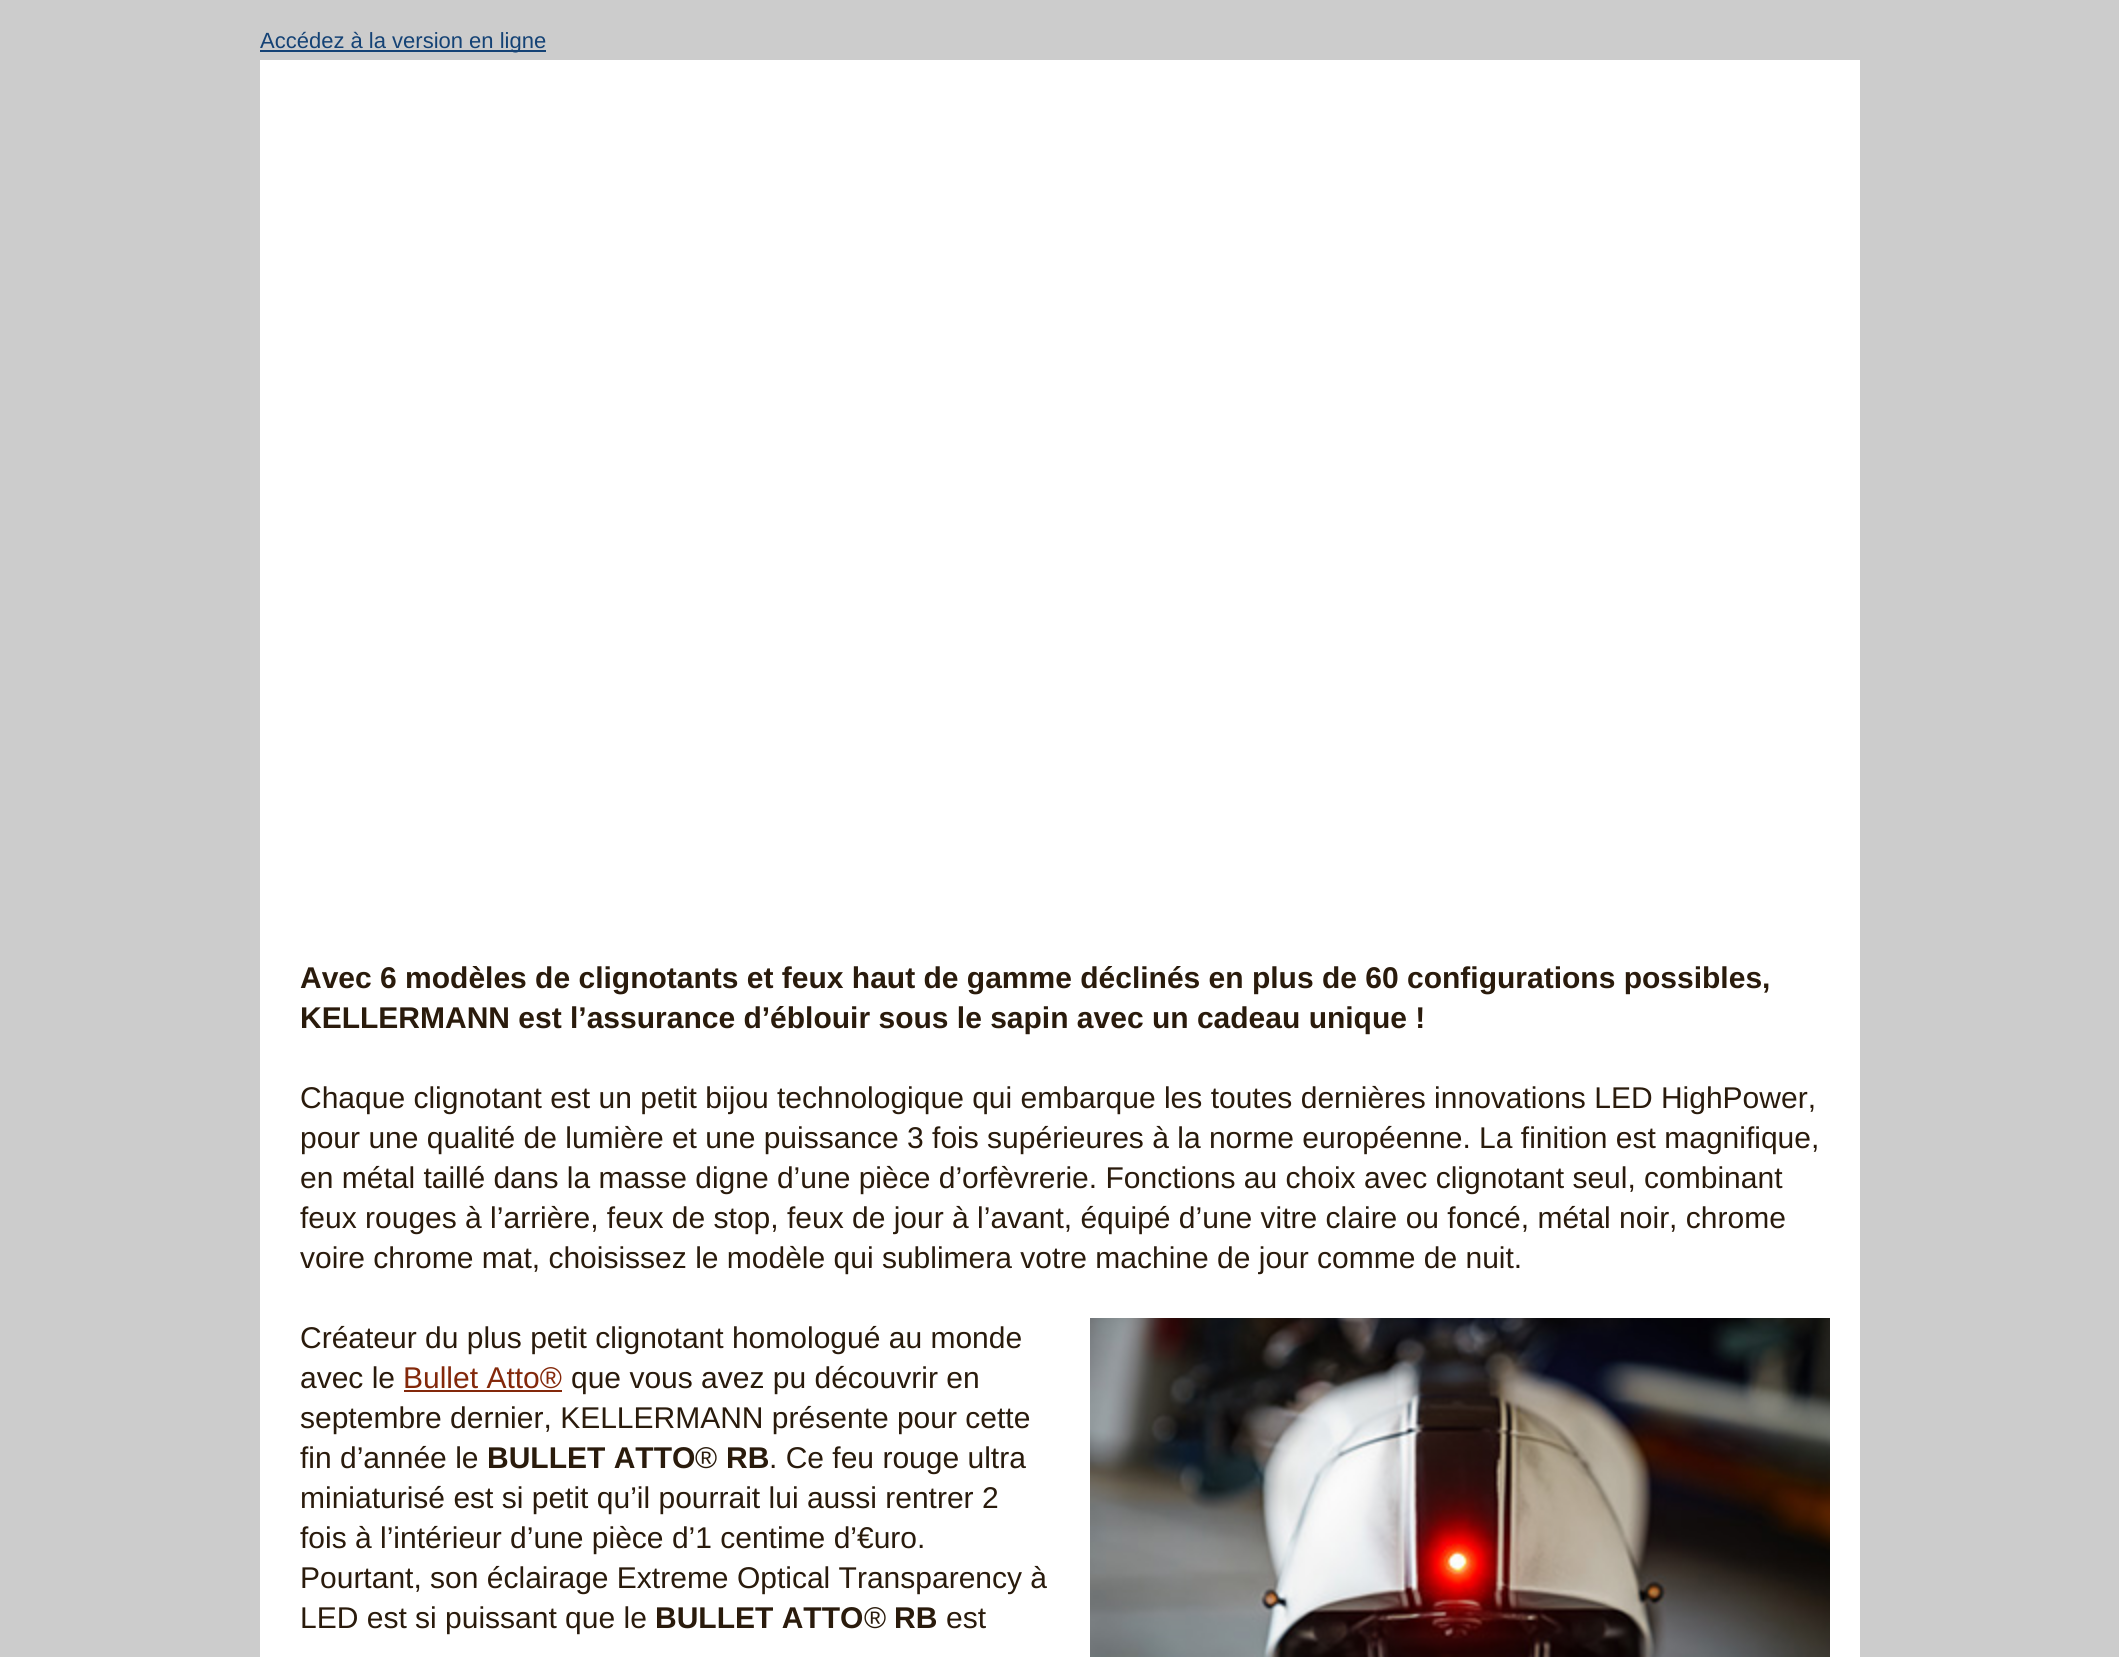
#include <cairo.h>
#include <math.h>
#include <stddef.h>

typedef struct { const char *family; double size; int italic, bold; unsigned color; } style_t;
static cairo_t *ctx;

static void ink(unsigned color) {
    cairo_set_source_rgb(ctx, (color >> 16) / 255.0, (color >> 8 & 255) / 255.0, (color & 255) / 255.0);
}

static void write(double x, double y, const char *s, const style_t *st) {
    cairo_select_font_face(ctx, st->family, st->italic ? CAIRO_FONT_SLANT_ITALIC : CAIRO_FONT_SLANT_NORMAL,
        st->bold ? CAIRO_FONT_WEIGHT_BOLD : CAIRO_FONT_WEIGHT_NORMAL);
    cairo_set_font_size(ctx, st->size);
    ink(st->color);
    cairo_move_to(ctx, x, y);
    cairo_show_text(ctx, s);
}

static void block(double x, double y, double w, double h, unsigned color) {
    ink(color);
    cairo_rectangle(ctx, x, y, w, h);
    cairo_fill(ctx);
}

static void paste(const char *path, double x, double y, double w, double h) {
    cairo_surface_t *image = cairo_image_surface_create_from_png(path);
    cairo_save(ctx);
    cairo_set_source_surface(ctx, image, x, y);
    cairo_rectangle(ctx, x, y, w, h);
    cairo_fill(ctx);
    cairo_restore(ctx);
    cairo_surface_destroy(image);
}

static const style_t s1 = {"Liberation Sans", 22, 0, 0, 0x144275};
static const style_t s2 = {"Liberation Sans", 30, 0, 1, 0x2a1b0c};
static const style_t s3 = {"Liberation Sans", 30, 0, 0, 0x2a1b0c};
static const style_t s4 = {"Liberation Sans", 30, 0, 0, 0x83280a};

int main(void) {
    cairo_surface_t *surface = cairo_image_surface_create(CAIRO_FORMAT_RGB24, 2119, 1657);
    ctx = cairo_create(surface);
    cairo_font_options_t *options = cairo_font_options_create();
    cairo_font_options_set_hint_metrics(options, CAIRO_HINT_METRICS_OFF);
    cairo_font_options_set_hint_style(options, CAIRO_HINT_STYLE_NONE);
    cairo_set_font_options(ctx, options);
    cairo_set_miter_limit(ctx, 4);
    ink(0xcccccc);
    cairo_paint(ctx);
    block(260, 50, 286, 2, 0x144275);
    write(260, 48, "Accédez à la version en ligne", &s1);
    block(260, 60, 1600, 1597, 0xffffff);
    write(300, 988, "Avec 6 modèles de clignotants et feux haut de gamme déclinés en plus de 60 configurations possibles,", &s2);
    write(300, 1028, "KELLERMANN est l’assurance d’éblouir sous le sapin avec un cadeau unique !", &s2);
    write(300, 1108, "Chaque clignotant est un petit bijou technologique qui embarque les toutes dernières innovations LED HighPower,", &s3);
    write(300, 1148, "pour une qualité de lumière et une puissance 3 fois supérieures à la norme européenne. La finition est magnifique,", &s3);
    write(300, 1188, "en métal taillé dans la masse digne d’une pièce d’orfèvrerie. Fonctions au choix avec clignotant seul, combinant", &s3);
    write(300, 1228, "feux rouges à l’arrière, feux de stop, feux de jour à l’avant, équipé d’une vitre claire ou foncé, métal noir, chrome", &s3);
    write(300, 1268, "voire chrome mat, choisissez le modèle qui sublimera votre machine de jour comme de nuit.", &s3);
    write(300, 1348, "Créateur du plus petit clignotant homologué au monde", &s3);
    write(300, 1388, "avec le", &s3);
    write(403, 1388, "Bullet Atto®", &s4);
    block(404, 1390, 158, 2, 0x83280a);
    write(571, 1388, "que vous avez pu découvrir en", &s3);
    write(300, 1428, "septembre dernier, KELLERMANN présente pour cette", &s3);
    write(300, 1468, "fin d’année le", &s3);
    write(487, 1468, "BULLET ATTO", &s2);
    write(695, 1468, "®", &s3);
    write(726, 1468, "RB", &s2);
    write(769, 1468, ". Ce feu rouge ultra", &s3);
    write(300, 1508, "miniaturisé est si petit qu’il pourrait lui aussi rentrer 2", &s3);
    write(300, 1548, "fois à l’intérieur d’une pièce d’1 centime d’€uro.", &s3);
    write(300, 1588, "Pourtant, son éclairage Extreme Optical Transparency à", &s3);
    write(300, 1628, "LED est si puissant que le", &s3);
    write(655, 1628, "BULLET ATTO", &s2);
    write(864, 1628, "®", &s3);
    write(894, 1628, "RB", &s2);
    write(946, 1628, "est", &s3);
    paste("pic1.png", 1090, 1318, 740, 339);
    cairo_surface_write_to_png(surface, "screenshot.png");
    cairo_font_options_destroy(options);
    cairo_destroy(ctx);
    cairo_surface_destroy(surface);
    return 0;
}
